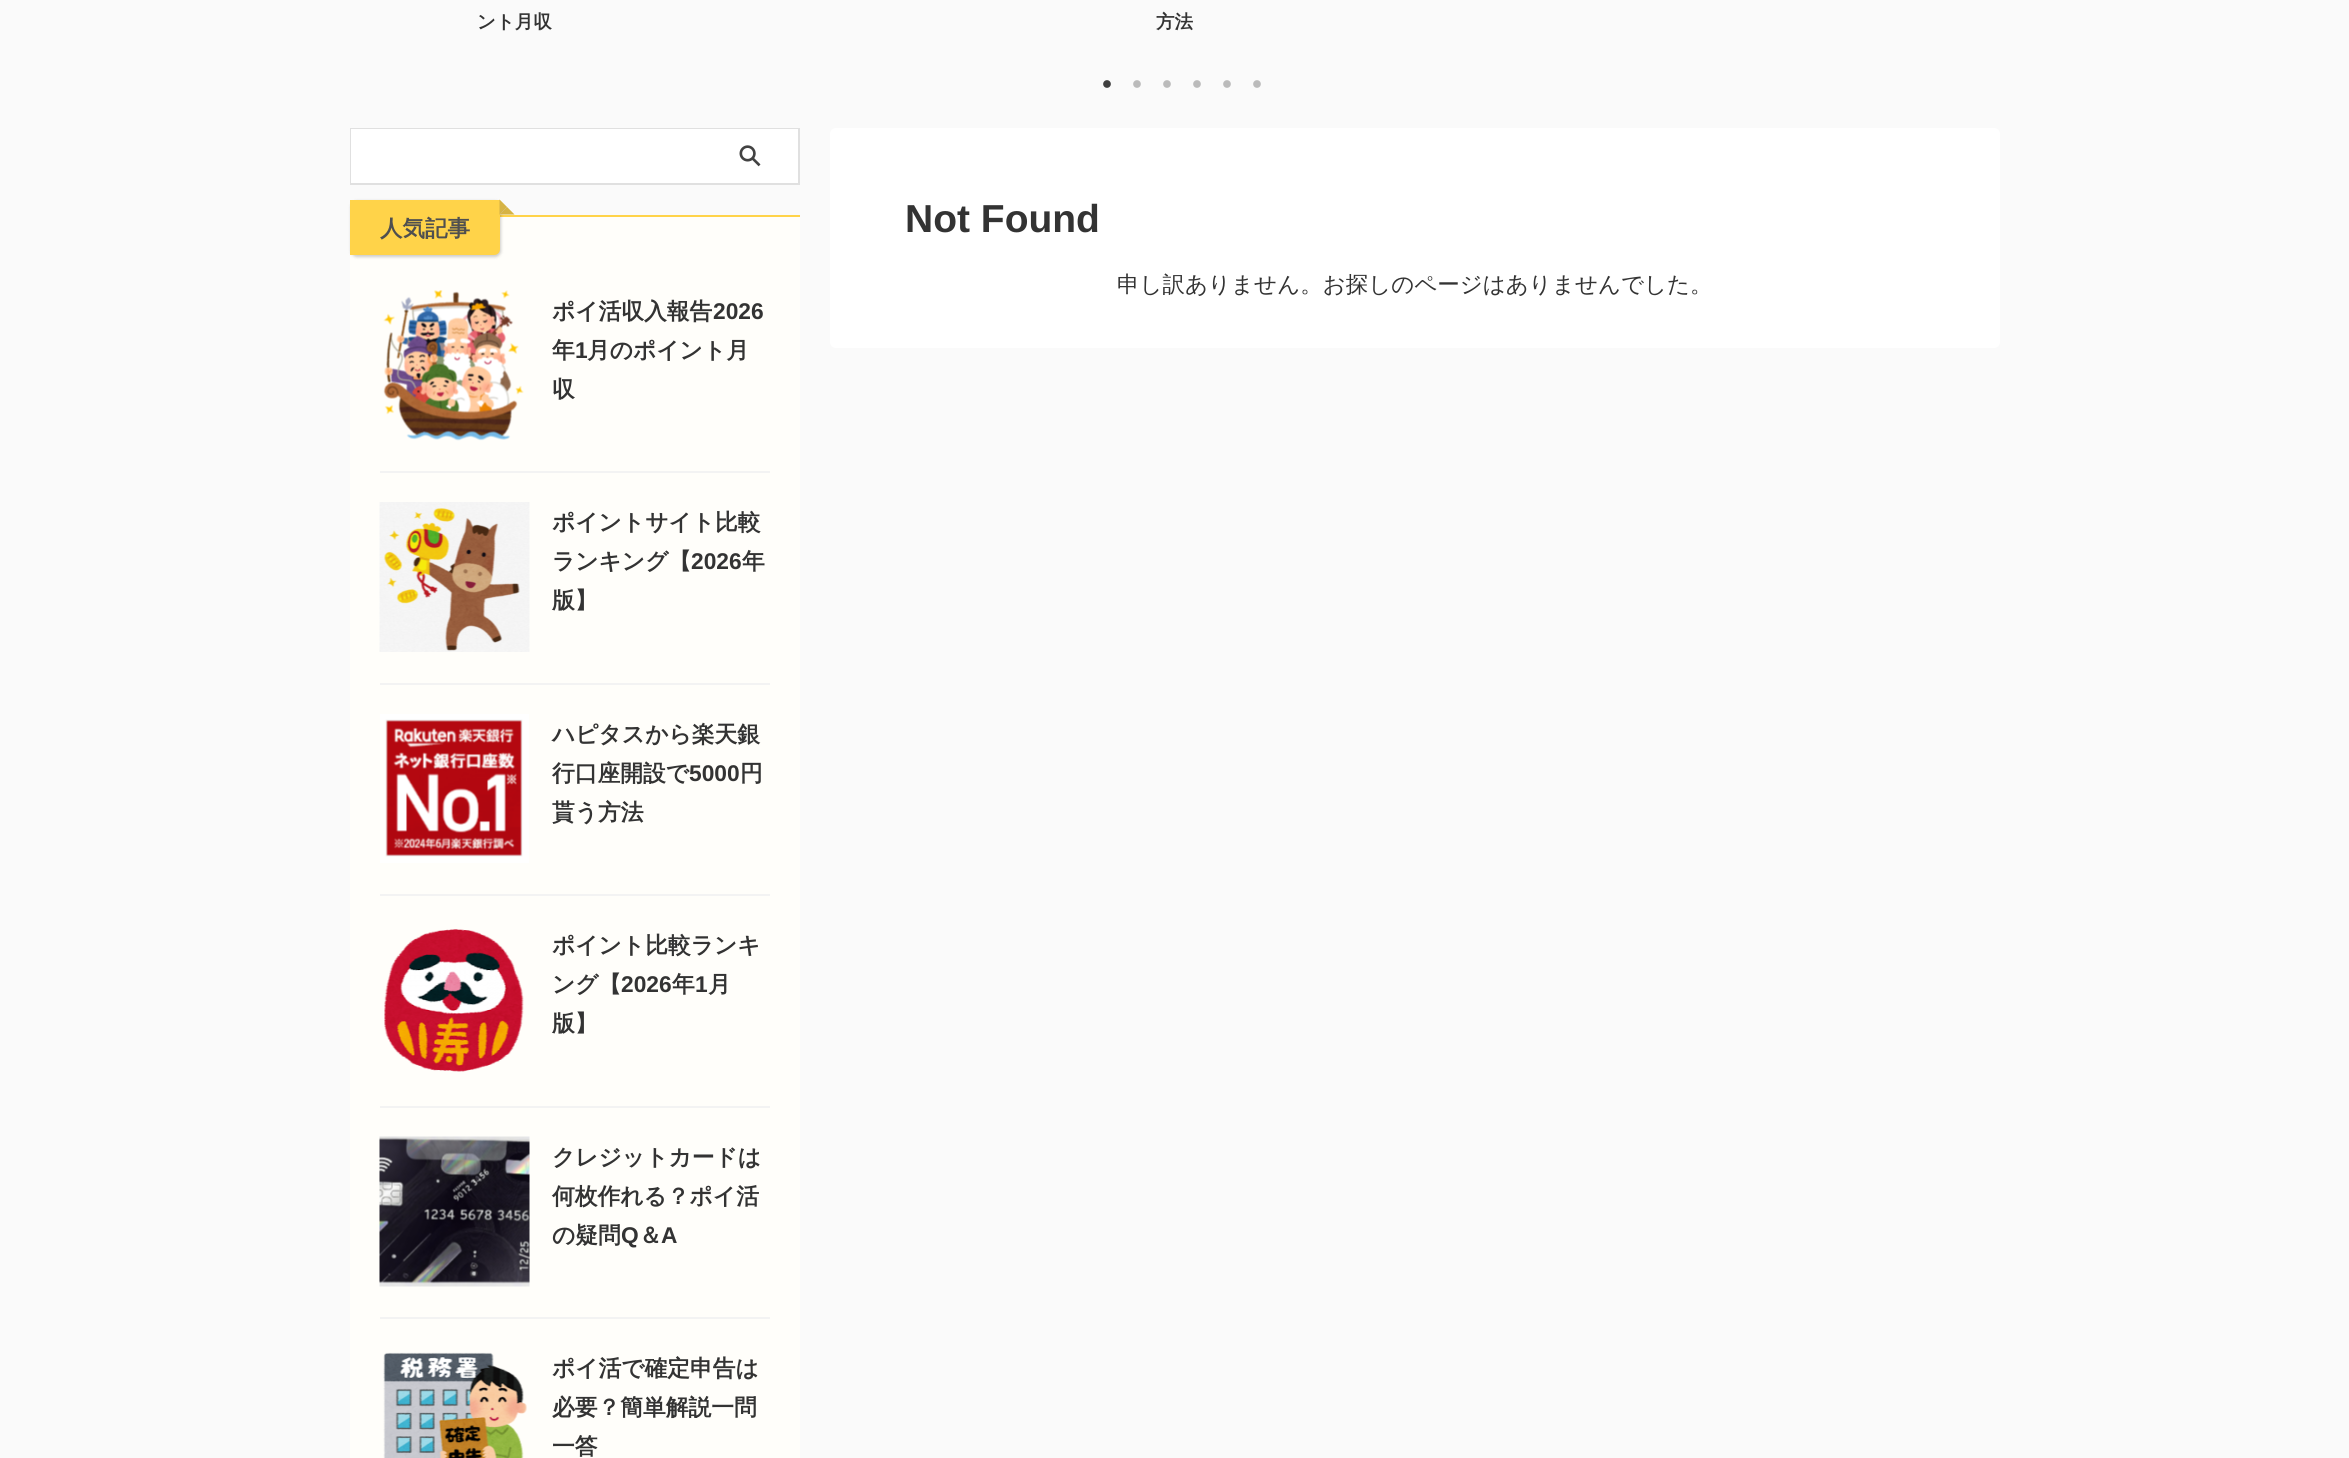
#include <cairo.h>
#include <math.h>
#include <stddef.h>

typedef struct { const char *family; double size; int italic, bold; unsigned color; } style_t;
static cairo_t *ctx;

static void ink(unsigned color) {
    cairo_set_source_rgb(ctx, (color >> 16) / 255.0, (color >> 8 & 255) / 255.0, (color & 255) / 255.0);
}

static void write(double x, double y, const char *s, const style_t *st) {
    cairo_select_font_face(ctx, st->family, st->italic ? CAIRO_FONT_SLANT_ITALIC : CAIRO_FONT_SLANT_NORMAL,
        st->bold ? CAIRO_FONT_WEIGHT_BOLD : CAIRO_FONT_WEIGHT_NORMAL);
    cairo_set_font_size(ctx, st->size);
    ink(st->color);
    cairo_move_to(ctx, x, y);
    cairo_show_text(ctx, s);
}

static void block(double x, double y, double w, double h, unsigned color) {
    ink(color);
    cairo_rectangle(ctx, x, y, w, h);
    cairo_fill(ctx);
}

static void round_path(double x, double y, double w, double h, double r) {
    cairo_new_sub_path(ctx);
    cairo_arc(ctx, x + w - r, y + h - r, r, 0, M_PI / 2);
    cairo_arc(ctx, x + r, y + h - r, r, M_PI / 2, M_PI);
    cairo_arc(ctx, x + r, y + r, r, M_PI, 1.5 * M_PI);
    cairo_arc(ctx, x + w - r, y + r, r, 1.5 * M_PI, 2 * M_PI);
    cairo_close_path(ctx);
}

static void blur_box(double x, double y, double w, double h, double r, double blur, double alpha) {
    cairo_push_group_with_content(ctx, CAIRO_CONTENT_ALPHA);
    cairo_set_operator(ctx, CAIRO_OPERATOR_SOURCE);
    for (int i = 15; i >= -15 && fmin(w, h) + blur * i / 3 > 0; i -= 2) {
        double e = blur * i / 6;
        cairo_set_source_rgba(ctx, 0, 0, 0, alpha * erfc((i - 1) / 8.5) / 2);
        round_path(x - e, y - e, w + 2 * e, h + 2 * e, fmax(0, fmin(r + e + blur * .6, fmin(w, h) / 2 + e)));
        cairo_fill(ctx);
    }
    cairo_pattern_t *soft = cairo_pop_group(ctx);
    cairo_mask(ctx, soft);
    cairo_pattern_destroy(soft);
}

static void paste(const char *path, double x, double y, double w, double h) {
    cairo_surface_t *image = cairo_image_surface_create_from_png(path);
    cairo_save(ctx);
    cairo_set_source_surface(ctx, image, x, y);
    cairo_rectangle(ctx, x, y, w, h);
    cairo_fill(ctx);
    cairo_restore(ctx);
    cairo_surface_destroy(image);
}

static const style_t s1 = {"WenQuanYi Zen Hei", 18.5, 0, 1, 0x333333};
static const style_t s2 = {"WenQuanYi Zen Hei", 22.5, 0, 1, 0x4f4f4f};
static const style_t s3 = {"WenQuanYi Zen Hei", 22.75, 0, 1, 0x333333};
static const style_t s4 = {"Liberation Sans", 22.75, 0, 1, 0x333333};
static const style_t s5 = {"Liberation Sans", 39, 0, 1, 0x333333};
static const style_t s6 = {"WenQuanYi Zen Hei Medium", 22.5, 0, 0, 0x333333};

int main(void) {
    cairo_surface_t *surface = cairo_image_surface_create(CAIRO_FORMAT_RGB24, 2349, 1458);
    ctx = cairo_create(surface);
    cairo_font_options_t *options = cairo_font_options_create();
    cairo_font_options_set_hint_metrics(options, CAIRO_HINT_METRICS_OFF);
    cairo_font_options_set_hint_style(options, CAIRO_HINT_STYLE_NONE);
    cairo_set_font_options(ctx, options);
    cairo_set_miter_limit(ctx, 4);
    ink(0xfafafa);
    cairo_paint(ctx);
    write(477, 28, "ント月収", &s1);
    write(1156, 28, "方法", &s1);
    paste("pic1.png", 1103, 80, 8, 8);
    paste("pic2.png", 1133, 80, 8, 8);
    paste("pic2.png", 1163, 80, 8, 8);
    paste("pic2.png", 1193, 80, 8, 8);
    paste("pic2.png", 1223, 80, 8, 8);
    paste("pic2.png", 1253, 80, 8, 8);
    cairo_rectangle(ctx, 351, 129, 448, 55);
    ink(0xe0e0e0);
    cairo_stroke(ctx);
    block(351, 129, 447, 54, 0xffffff);
    paste("pic3.png", 739, 145, 22, 22);
    block(350, 217, 450, 1241, 0xfffefa);
    block(500, 215, 300, 2, 0xffd349);
    ink(0x000000);
    blur_box(351, 201, 150, 56, 6, 1.5, 0.2);
    ink(0xffd349);
    cairo_new_path(ctx);
    cairo_move_to(ctx, 350, 200);
    cairo_line_to(ctx, 500, 200);
    cairo_line_to(ctx, 500, 249);
    cairo_curve_to(ctx, 500, 252.5, 497.5, 255, 494, 255);
    cairo_line_to(ctx, 350, 255);
    cairo_close_path(ctx);
    cairo_fill(ctx);
    cairo_new_path(ctx);
    cairo_move_to(ctx, 514.5, 214.5);
    cairo_line_to(ctx, 499.5, 214.5);
    cairo_line_to(ctx, 507, 207);
    cairo_close_path(ctx);
    cairo_fill(ctx);
    cairo_new_path(ctx);
    cairo_move_to(ctx, 499.5, 214.5);
    cairo_line_to(ctx, 499.5, 199.5);
    cairo_line_to(ctx, 507, 207);
    cairo_close_path(ctx);
    cairo_fill(ctx);
    cairo_set_source_rgba(ctx, 0.2, 0.2, 0.2, 0.2);
    cairo_new_path(ctx);
    cairo_move_to(ctx, 514.5, 214.5);
    cairo_line_to(ctx, 499.5, 214.5);
    cairo_line_to(ctx, 507, 207);
    cairo_close_path(ctx);
    cairo_fill(ctx);
    cairo_new_path(ctx);
    cairo_move_to(ctx, 499.5, 214.5);
    cairo_line_to(ctx, 499.5, 199.5);
    cairo_line_to(ctx, 507, 207);
    cairo_close_path(ctx);
    cairo_fill(ctx);
    write(380, 236, "人気記事", &s2);
    block(380, 471, 390, 2, 0xf3f3f3);
    paste("pic4.png", 383, 290, 141, 151);
    write(552, 319, "ポイ活収入報告", &s3);
    write(713, 319, "2026", &s4);
    write(552, 358, "年", &s3);
    write(575, 358, "1", &s4);
    write(587, 358, "月のポイント月", &s3);
    write(552, 397, "収", &s3);
    block(380, 683, 390, 2, 0xf3f3f3);
    paste("pic5.png", 379, 502, 151, 150);
    write(552, 530, "ポイントサイト比較", &s3);
    write(552, 569, "ランキング【", &s3);
    write(691, 569, "2026", &s4);
    write(742, 569, "年", &s3);
    write(552, 608, "版】", &s3);
    block(380, 894, 390, 2, 0xf3f3f3);
    paste("pic6.png", 380, 714, 149, 149);
    write(552, 742, "ハピタスから楽天銀", &s3);
    write(552, 781, "行口座開設で", &s3);
    write(689, 781, "5000", &s4);
    write(740, 781, "円", &s3);
    write(552, 820, "貰う方法", &s3);
    block(380, 1106, 390, 2, 0xf3f3f3);
    paste("pic7.png", 384, 929, 140, 143);
    write(552, 953, "ポイント比較ランキ", &s3);
    write(552, 992, "ング【", &s3);
    write(621, 992, "2026", &s4);
    write(672, 992, "年", &s3);
    write(695, 992, "1", &s4);
    write(708, 992, "月", &s3);
    write(552, 1031, "版】", &s3);
    block(380, 1317, 390, 2, 0xf3f3f3);
    paste("pic8.png", 379, 1136, 151, 151);
    write(552, 1165, "クレジットカードは", &s3);
    write(552, 1204, "何枚作れる？ポイ活", &s3);
    write(552, 1243, "の疑問", &s3);
    write(621, 1243, "Q", &s4);
    write(639, 1243, "＆", &s3);
    write(661, 1243, "A", &s4);
    paste("pic9.png", 383, 1352, 144, 106);
    write(552, 1376, "ポイ活で確定申告は", &s3);
    write(552, 1415, "必要？簡単解説一問", &s3);
    write(552, 1454, "一答", &s3);
    ink(0xffffff);
    round_path(830, 128, 1170, 220, 6);
    cairo_fill(ctx);
    write(905, 232, "Not Found", &s5);
    write(1117, 292, "申し訳ありません。お探しのページはありませんでした。", &s6);
    cairo_surface_write_to_png(surface, "screenshot.png");
    cairo_font_options_destroy(options);
    cairo_destroy(ctx);
    cairo_surface_destroy(surface);
    return 0;
}
